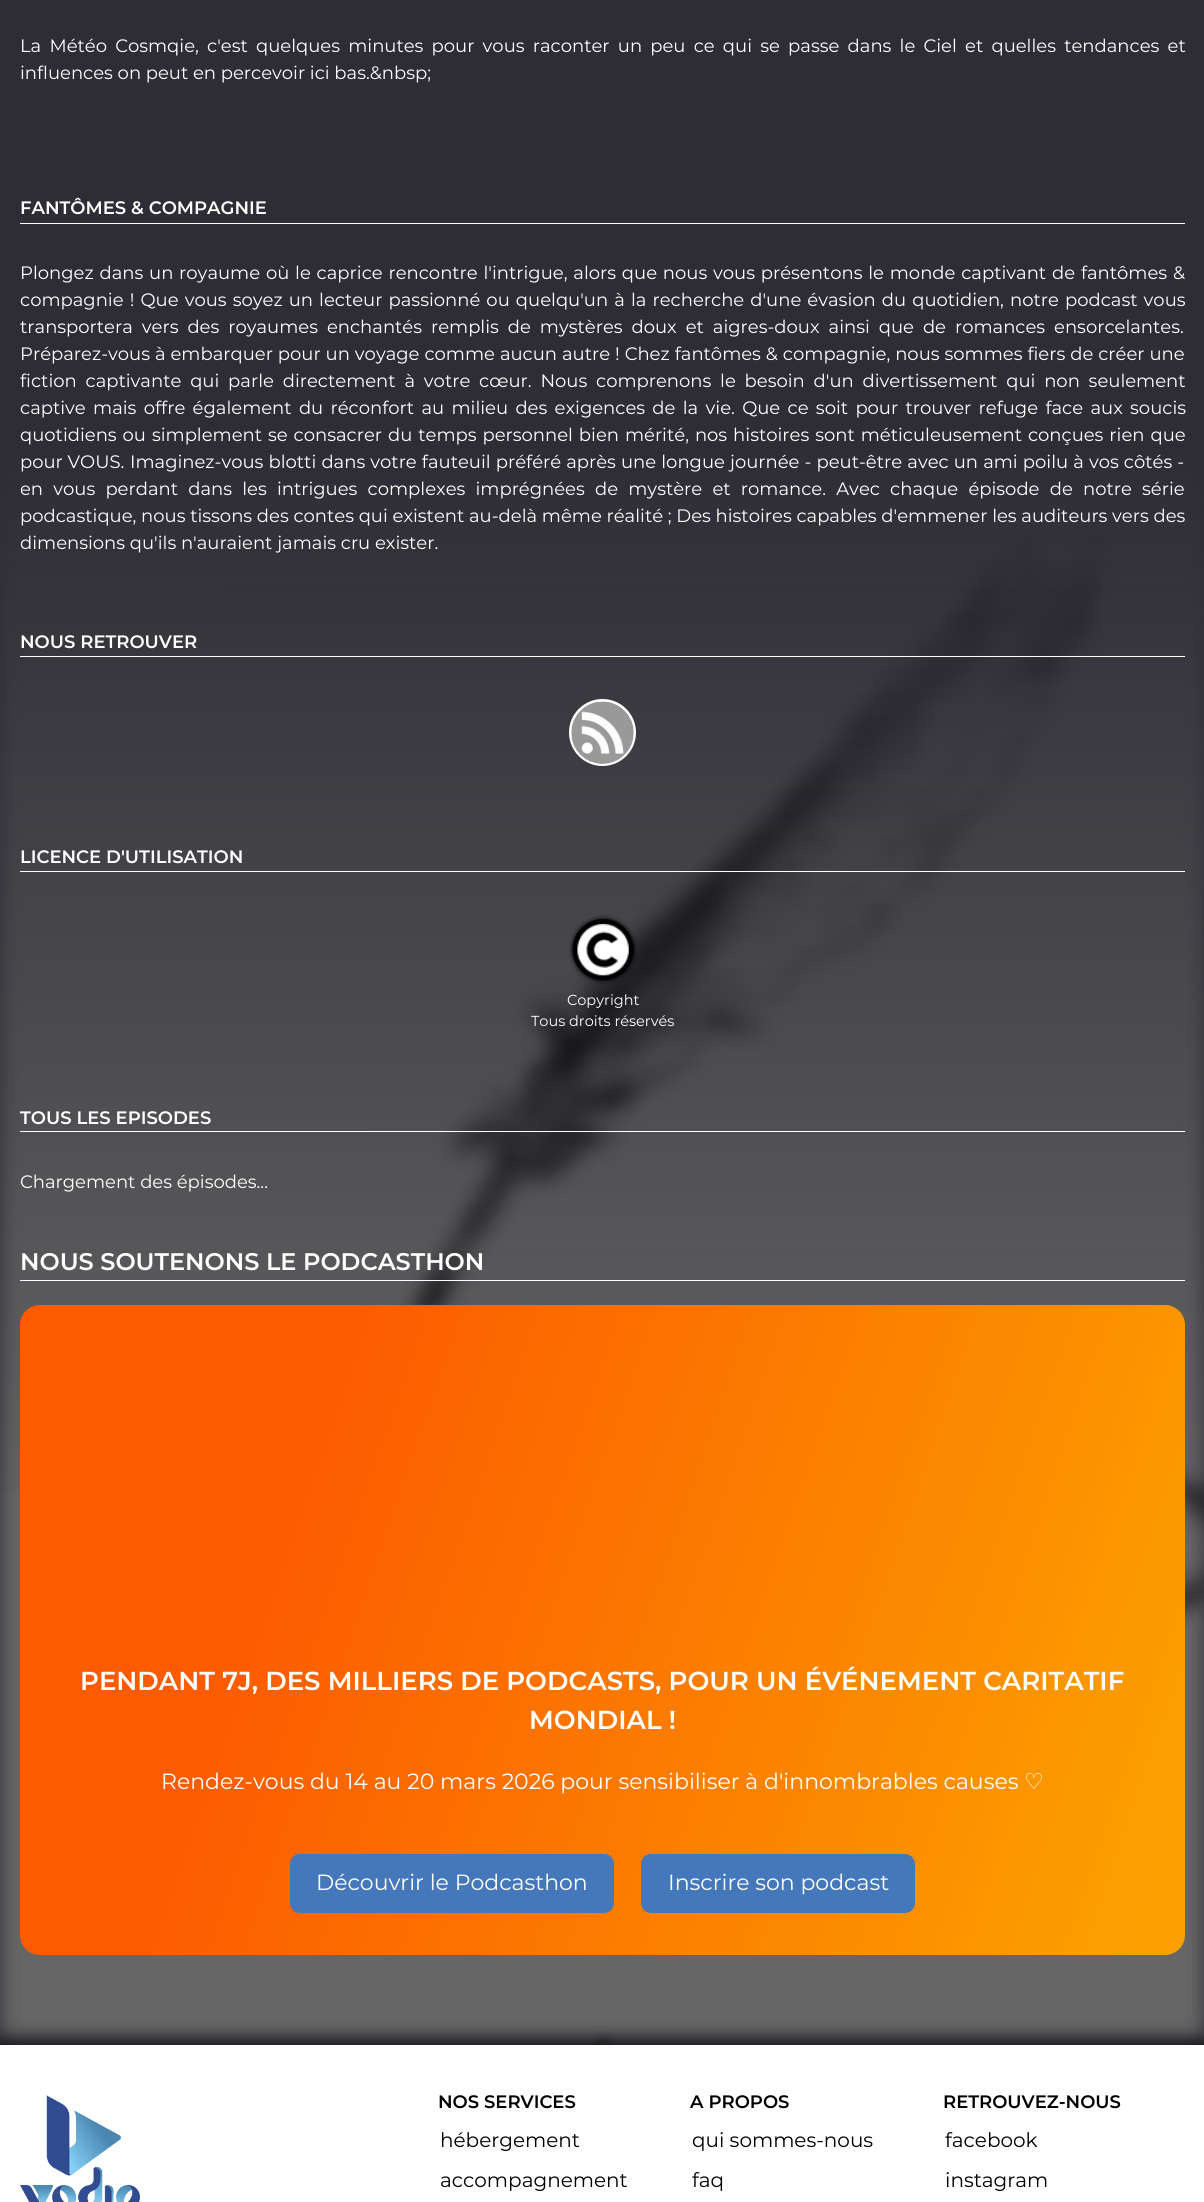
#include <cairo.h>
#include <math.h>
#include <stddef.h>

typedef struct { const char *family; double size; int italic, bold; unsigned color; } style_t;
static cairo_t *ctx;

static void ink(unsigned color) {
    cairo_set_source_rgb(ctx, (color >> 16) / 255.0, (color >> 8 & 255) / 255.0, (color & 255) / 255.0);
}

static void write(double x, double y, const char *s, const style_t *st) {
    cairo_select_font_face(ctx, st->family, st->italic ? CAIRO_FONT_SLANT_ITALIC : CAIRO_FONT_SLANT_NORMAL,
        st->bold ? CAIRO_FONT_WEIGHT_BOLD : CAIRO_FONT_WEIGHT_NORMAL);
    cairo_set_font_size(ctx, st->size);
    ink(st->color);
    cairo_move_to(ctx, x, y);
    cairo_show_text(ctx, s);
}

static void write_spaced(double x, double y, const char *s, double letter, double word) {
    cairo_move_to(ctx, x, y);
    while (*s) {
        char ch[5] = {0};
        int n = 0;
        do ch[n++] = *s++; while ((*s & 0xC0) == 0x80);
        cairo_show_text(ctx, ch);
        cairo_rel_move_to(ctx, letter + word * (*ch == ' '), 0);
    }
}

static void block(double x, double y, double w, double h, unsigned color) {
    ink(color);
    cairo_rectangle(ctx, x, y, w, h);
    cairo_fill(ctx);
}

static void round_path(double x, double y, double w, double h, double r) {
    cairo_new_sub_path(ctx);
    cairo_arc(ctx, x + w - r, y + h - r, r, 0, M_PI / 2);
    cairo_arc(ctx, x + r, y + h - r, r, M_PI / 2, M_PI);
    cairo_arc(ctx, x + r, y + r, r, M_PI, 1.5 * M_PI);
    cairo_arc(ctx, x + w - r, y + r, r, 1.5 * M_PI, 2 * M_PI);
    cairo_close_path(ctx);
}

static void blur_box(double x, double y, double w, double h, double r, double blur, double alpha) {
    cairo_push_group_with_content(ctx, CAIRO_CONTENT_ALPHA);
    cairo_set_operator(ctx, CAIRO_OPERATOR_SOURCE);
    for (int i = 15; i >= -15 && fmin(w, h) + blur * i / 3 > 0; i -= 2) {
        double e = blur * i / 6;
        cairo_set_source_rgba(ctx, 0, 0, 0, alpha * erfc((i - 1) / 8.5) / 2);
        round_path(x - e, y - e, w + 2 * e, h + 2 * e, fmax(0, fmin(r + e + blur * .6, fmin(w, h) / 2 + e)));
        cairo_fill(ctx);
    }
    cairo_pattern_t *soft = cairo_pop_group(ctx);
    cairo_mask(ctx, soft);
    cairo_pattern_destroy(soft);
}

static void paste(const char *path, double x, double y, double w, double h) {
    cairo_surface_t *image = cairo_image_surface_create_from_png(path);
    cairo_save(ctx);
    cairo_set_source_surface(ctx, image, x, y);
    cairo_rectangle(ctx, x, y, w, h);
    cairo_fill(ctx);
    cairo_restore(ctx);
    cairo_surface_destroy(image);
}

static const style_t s1 = {"Montserrat", 18, 0, 0, 0xffffff};
static const style_t s2 = {"Montserrat SemiBold", 18, 0, 0, 0xffffff};
static const style_t s3 = {"Montserrat", 14.5, 0, 0, 0xffffff};
static const style_t s4 = {"Montserrat SemiBold", 24, 0, 0, 0xffffff};
static const style_t s5 = {"Montserrat SemiBold", 26, 0, 0, 0xffffff};
static const style_t s6 = {"Montserrat", 22, 0, 0, 0xffffff};
static const style_t s7 = {"DejaVu Sans", 22, 0, 0, 0xffffff};
static const style_t s8 = {"Montserrat SemiBold", 18, 0, 0, 0x000000};
static const style_t s9 = {"Montserrat", 20, 0, 0, 0x000000};

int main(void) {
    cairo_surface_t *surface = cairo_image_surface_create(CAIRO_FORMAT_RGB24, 1204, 2202);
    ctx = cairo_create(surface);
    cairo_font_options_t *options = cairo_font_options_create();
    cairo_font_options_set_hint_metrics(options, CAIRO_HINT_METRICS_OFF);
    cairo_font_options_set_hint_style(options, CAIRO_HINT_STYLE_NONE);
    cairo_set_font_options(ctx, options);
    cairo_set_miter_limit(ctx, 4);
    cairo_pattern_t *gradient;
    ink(0x2e2d35);
    cairo_paint(ctx);
    cairo_select_font_face(ctx, "Montserrat", CAIRO_FONT_SLANT_NORMAL, CAIRO_FONT_WEIGHT_NORMAL);
    cairo_set_font_size(ctx, 18);
    ink(0xffffff);
    write_spaced(20, 52, "La Météo Cosmqie, c'est quelques minutes pour vous raconter un peu ce qui se passe dans le Ciel et quelles tendances et", 0, 3.5);
    write(20, 79, "influences on peut en percevoir ici bas.&nbsp;", &s1);
    block(20, 223, 1165, 1, 0xffffff);
    write(20, 214, "FANTÔMES & COMPAGNIE", &s2);
    cairo_select_font_face(ctx, "Montserrat", CAIRO_FONT_SLANT_NORMAL, CAIRO_FONT_WEIGHT_NORMAL);
    write_spaced(20, 279, "Plongez dans un royaume où le caprice rencontre l'intrigue, alors que nous vous présentons le monde captivant de fantômes &", 0, 1.1);
    write_spaced(20, 306, "compagnie ! Que vous soyez un lecteur passionné ou quelqu'un à la recherche d'une évasion du quotidien, notre podcast vous", 0, 1.4);
    write_spaced(20, 333, "transportera vers des royaumes enchantés remplis de mystères doux et aigres-doux ainsi que de romances ensorcelantes.", 0, 4.25);
    write_spaced(20, 360, "Préparez-vous à embarquer pour un voyage comme aucun autre ! Chez fantômes & compagnie, nous sommes fiers de créer une", 0, 0.25);
    write_spaced(20, 387, "fiction captivante qui parle directement à votre cœur. Nous comprenons le besoin d'un divertissement qui non seulement", 0, 4.1);
    write_spaced(20, 414, "captive mais offre également du réconfort au milieu des exigences de la vie. Que ce soit pour trouver refuge face aux soucis", 0, 2.6);
    write_spaced(20, 441, "quotidiens ou simplement se consacrer du temps personnel bien mérité, nos histoires sont méticuleusement conçues rien que", 0, 1.25);
    paste("pic3.png", 0, 448, 1204, 1597);
    gradient = cairo_pattern_create_linear(602, 0, 603, 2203);
    cairo_pattern_add_color_stop_rgba(gradient, 0.2, 0.18, 0.176, 0.208, 1);
    cairo_pattern_add_color_stop_rgba(gradient, 0.3, 0.18, 0.176, 0.208, 0.82);
    cairo_pattern_add_color_stop_rgba(gradient, 0.7, 0.18, 0.176, 0.208, 0);
    cairo_set_source(ctx, gradient);
    cairo_pattern_destroy(gradient);
    cairo_rectangle(ctx, 0, 448, 1204, 1046);
    cairo_fill(ctx);
    write(20, 468, "pour VOUS.", &s1);
    write_spaced(130, 468, "Imaginez-vous blotti dans votre fauteuil préféré après une longue journée - peut-être avec un ami poilu à vos côtés -", 0, 0.4);
    write_spaced(20, 495, "en vous perdant dans les intrigues complexes imprégnées de mystère et romance. Avec chaque épisode de notre série", 0, 5.5);
    write(20, 522, "podcastique, nous tissons des contes qui existent au-delà même réalité ; Des histoires capables d'emmener les auditeurs vers des", &s1);
    write(20, 549, "dimensions qu'ils n'auraient jamais cru exister.", &s1);
    block(20, 656, 1165, 1, 0xffffff);
    write(20, 648, "NOUS RETROUVER", &s2);
    cairo_new_path(ctx);
    cairo_arc(ctx, 602.5, 732.5, 32, 0, 2 * M_PI);
    cairo_set_line_width(ctx, 3);
    cairo_stroke(ctx);
    paste("pic1.png", 571, 701, 63, 63);
    block(20, 871, 1165, 1, 0xffffff);
    write(20, 863, "LICENCE D'UTILISATION", &s2);
    paste("pic2.png", 569, 915, 68, 69);
    write(567, 1005, "Copyright", &s3);
    write(531, 1026, "Tous droits réservés", &s3);
    block(20, 1131, 1165, 1, 0xffffff);
    write(20, 1124, "TOUS LES EPISODES", &s2);
    write(20, 1188, "Chargement des épisodes...", &s1);
    block(20, 1280, 1165, 1, 0xffffff);
    write(20, 1270, "NOUS SOUTENONS LE PODCASTHON", &s4);
    gradient = cairo_pattern_create_linear(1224, 1842, -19, 1418);
    cairo_pattern_add_color_stop_rgba(gradient, 0.04, 0.988, 0.627, 0, 1);
    cairo_pattern_add_color_stop_rgba(gradient, 0.77, 0.988, 0.357, 0, 1);
    cairo_set_source(ctx, gradient);
    cairo_pattern_destroy(gradient);
    round_path(20, 1305, 1165, 650, 20);
    cairo_fill(ctx);
    write(80, 1690, "PENDANT 7J, DES MILLIERS DE PODCASTS, POUR UN ÉVÉNEMENT CARITATIF", &s5);
    write(529, 1729, "MONDIAL !", &s5);
    write(161, 1789, "Rendez-vous du 14 au 20 mars 2026 pour sensibiliser à d'innombrables causes", &s6);
    write(1024, 1789, "♡", &s7);
    ink(0x4478bb);
    round_path(290, 1854, 324, 59, 10);
    cairo_fill(ctx);
    write(316, 1890, "Découvrir le Podcasthon", &s6);
    ink(0x4478bb);
    round_path(641, 1854, 274, 59, 10);
    cairo_fill(ctx);
    write(668, 1890, "Inscrire son podcast", &s6);
    ink(0x000000);
    blur_box(0, 2040, 603, 25, 0, 6.5, 0.5);
    blur_box(603, 2040, 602, 25, 0, 6.5, 0.5);
    block(0, 2045, 1204, 157, 0xffffff);
    paste("pic4.png", 20, 2095, 120, 107);
    write(438, 2108, "NOS SERVICES", &s8);
    write(440, 2147, "hébergement", &s9);
    write(440, 2187, "accompagnement", &s9);
    write(690, 2108, "A PROPOS", &s8);
    write(692, 2147, "qui sommes-nous", &s9);
    write(692, 2187, "faq", &s9);
    write(943, 2108, "RETROUVEZ-NOUS", &s8);
    write(945, 2147, "facebook", &s9);
    write(945, 2187, "instagram", &s9);
    cairo_surface_write_to_png(surface, "screenshot.png");
    cairo_font_options_destroy(options);
    cairo_destroy(ctx);
    cairo_surface_destroy(surface);
    return 0;
}
